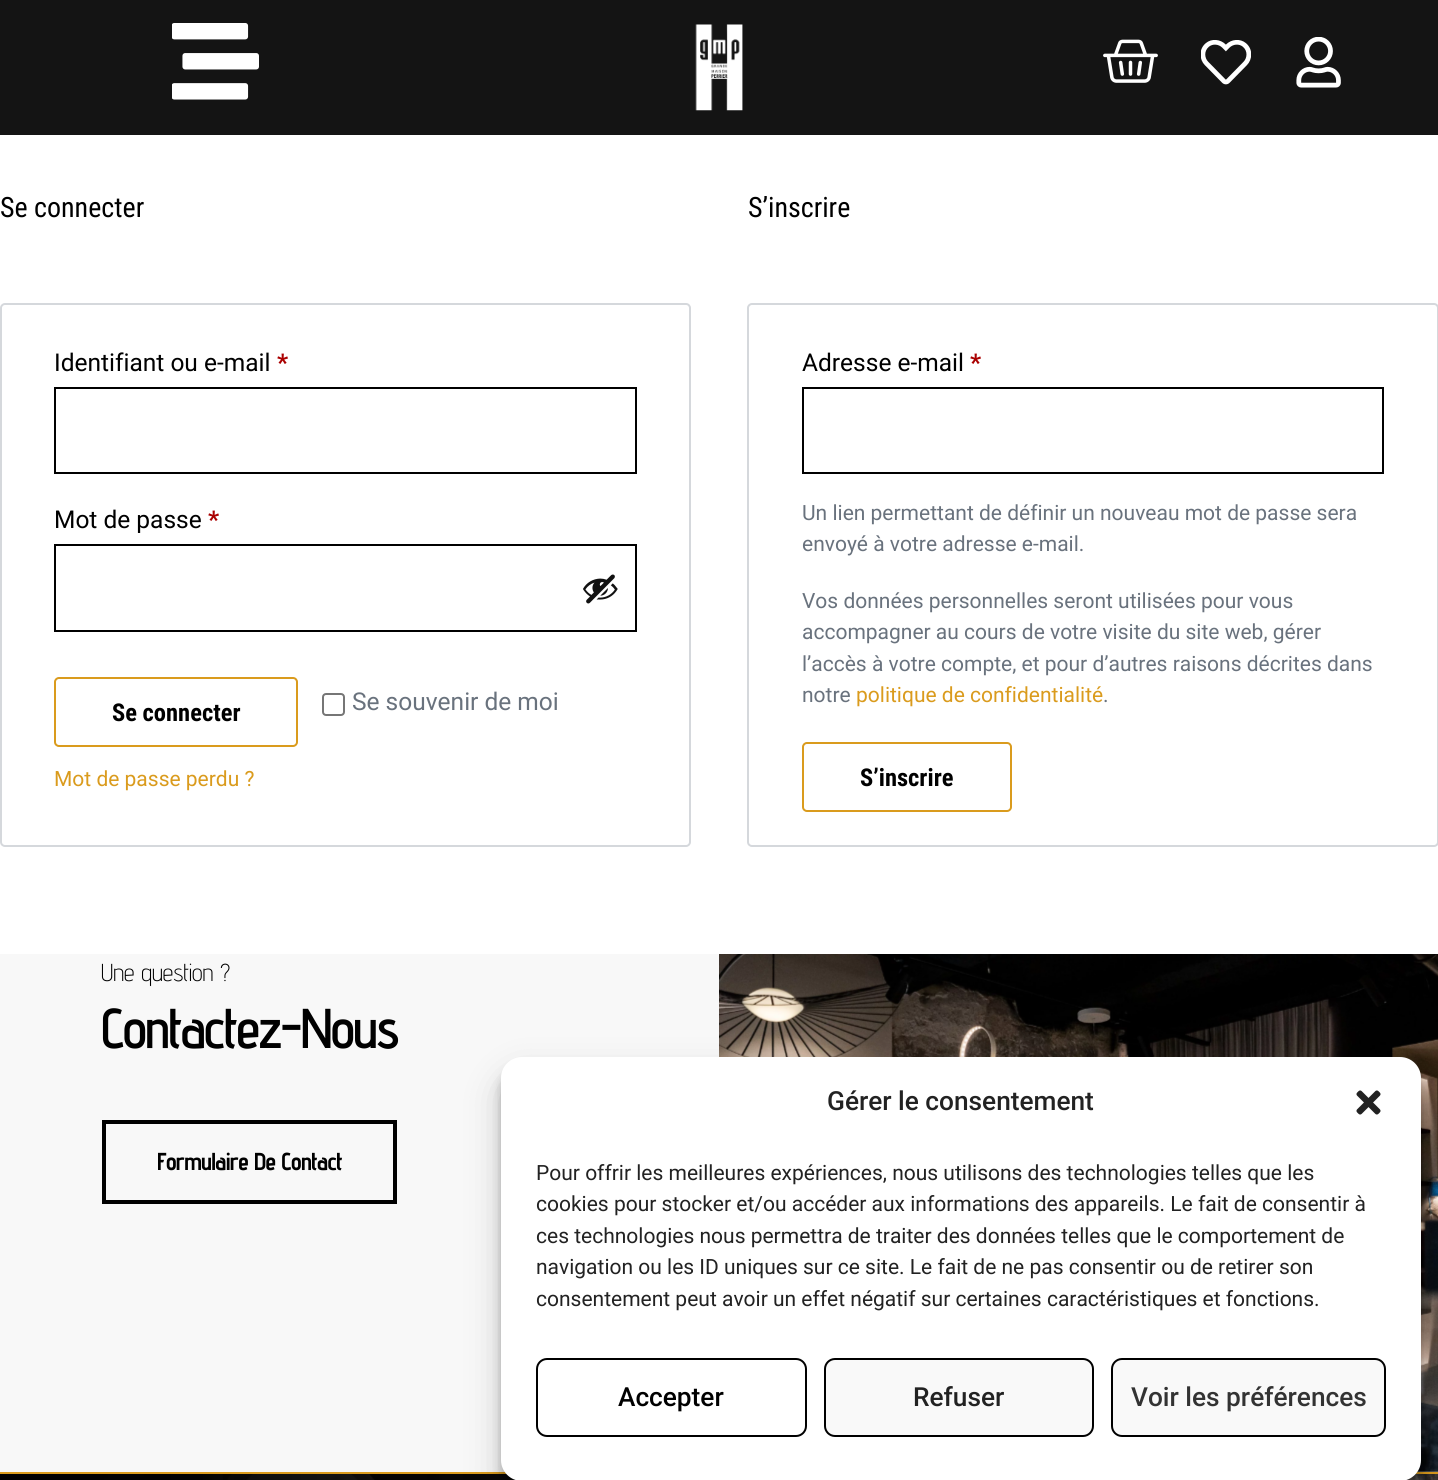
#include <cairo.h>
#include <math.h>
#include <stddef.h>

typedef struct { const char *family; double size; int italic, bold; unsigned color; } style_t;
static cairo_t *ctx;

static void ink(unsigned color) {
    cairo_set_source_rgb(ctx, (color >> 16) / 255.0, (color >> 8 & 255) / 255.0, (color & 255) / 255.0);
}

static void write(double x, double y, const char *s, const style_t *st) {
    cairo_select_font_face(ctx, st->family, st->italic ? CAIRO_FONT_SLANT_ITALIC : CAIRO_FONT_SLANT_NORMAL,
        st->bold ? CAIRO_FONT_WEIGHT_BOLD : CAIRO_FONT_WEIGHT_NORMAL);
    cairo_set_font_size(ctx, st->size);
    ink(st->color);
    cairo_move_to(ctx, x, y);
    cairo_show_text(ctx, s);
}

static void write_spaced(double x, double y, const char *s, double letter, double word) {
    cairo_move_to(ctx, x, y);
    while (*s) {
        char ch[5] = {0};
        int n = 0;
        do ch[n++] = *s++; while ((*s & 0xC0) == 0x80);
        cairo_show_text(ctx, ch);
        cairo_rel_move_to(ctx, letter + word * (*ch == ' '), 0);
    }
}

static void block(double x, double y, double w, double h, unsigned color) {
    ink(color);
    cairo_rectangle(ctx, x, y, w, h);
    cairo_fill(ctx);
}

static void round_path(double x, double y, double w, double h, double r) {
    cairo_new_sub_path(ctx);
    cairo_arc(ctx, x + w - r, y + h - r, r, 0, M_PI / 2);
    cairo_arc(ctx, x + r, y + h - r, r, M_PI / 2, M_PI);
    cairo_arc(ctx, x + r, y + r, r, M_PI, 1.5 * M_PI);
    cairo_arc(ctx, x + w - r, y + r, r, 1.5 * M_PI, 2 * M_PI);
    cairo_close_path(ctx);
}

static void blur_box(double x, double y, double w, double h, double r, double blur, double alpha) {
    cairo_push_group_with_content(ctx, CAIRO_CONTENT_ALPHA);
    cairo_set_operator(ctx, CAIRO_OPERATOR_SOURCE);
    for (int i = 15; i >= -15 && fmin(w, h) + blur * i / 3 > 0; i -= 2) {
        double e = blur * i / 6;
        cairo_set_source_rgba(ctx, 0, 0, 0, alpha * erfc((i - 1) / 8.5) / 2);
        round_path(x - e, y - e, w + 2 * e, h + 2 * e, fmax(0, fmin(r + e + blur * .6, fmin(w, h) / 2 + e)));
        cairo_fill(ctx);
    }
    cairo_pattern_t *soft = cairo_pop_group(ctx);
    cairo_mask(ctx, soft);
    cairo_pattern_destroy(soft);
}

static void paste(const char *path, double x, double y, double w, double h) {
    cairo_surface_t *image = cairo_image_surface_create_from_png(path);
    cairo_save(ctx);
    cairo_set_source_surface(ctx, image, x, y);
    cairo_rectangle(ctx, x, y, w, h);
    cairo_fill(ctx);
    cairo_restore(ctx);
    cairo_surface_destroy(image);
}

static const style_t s1 = {"Roboto Condensed", 28, 0, 0, 0x000000};
static const style_t s2 = {"Roboto", 24.5, 0, 0, 0x000000};
static const style_t s3 = {"Roboto", 24.5, 0, 1, 0xaa0000};
static const style_t s4 = {"Roboto Condensed", 24.5, 0, 1, 0x000000};
static const style_t s5 = {"Roboto", 24.5, 0, 0, 0x69727d};
static const style_t s6 = {"Roboto", 21, 0, 0, 0xda9b1d};
static const style_t s7 = {"Roboto", 21, 0, 0, 0x69727d};
static const style_t s8 = {"Advent Pro Light", 24.5, 0, 0, 0x000000};
static const style_t s9 = {"Roboto Medium", 26.25, 0, 0, 0x222222};
static const style_t s10 = {"Roboto", 21, 0, 0, 0x222222};
static const style_t s11 = {"Roboto Medium", 26.25, 0, 0, 0x000000};
static const style_t s12 = {"Roboto Medium", 26.25, 0, 0, 0x333333};

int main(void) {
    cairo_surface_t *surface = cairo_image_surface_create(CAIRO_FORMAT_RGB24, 1438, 1480);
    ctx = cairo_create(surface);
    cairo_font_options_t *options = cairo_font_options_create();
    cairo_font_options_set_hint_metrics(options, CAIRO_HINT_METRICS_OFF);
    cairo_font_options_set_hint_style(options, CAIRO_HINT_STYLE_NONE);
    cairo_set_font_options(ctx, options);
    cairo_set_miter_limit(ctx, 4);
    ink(0xffffff);
    cairo_paint(ctx);
    block(0, 0, 1438, 135, 0x141414);
    paste("pic1.png", 172, 23, 87, 77);
    paste("pic2.png", 695, 24, 48, 87);
    paste("pic3.png", 1103, 39, 55, 44);
    paste("pic4.png", 1201, 40, 50, 45);
    paste("pic5.png", 1296, 37, 45, 51);
    write(0, 217, "Se connecter", &s1);
    round_path(1, 304, 689, 542, 4);
    ink(0xd5d8dc);
    cairo_stroke(ctx);
    write(54, 371, "Identifiant ou e-mail", &s2);
    write(277, 371, "*", &s3);
    cairo_rectangle(ctx, 55, 388, 581, 85);
    ink(0x000000);
    cairo_stroke(ctx);
    write(54, 528, "Mot de passe", &s2);
    write(208, 528, "*", &s3);
    cairo_rectangle(ctx, 55, 545, 581, 86);
    ink(0x000000);
    cairo_stroke(ctx);
    paste("pic6.png", 583, 574, 35, 30);
    round_path(55, 678, 242, 68, 4);
    ink(0xda9b1d);
    cairo_stroke(ctx);
    write(112, 721, "Se connecter", &s4);
    round_path(323, 694, 21, 21, 3);
    ink(0x767676);
    cairo_stroke(ctx);
    write(352, 710, "Se souvenir de moi", &s5);
    write(54, 786, "Mot de passe perdu ?", &s6);
    write(748, 217, "S’inscrire", &s1);
    round_path(748, 304, 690, 542, 4);
    ink(0xd5d8dc);
    cairo_stroke(ctx);
    write(802, 371, "Adresse e-mail", &s2);
    write(970, 371, "*", &s3);
    cairo_rectangle(ctx, 803, 388, 580, 85);
    ink(0x000000);
    cairo_stroke(ctx);
    write(802, 520, "Un lien permettant de définir un nouveau mot de passe sera", &s7);
    write(802, 551, "envoyé à votre adresse e-mail.", &s7);
    write(802, 608, "Vos données personnelles seront utilisées pour vous", &s7);
    write(802, 639, "accompagner au cours de votre visite du site web, gérer", &s7);
    write(802, 671, "l’accès à votre compte, et pour d’autres raisons décrites dans", &s7);
    write(802, 702, "notre", &s7);
    write(856, 702, "politique de confidentialité", &s6);
    write(1103, 702, ".", &s7);
    round_path(803, 743, 208, 68, 4);
    ink(0xda9b1d);
    cairo_stroke(ctx);
    write(860, 786, "S’inscrire", &s4);
    paste("pic8.png", 0, 1471, 1438, 9);
    block(0, 954, 719, 518, 0xf8f8f8);
    write(101, 981, "Une question ?", &s8);
    cairo_select_font_face(ctx, "Advent Pro SemiBold", CAIRO_FONT_SLANT_NORMAL, CAIRO_FONT_WEIGHT_NORMAL);
    cairo_set_font_size(ctx, 56);
    write_spaced(101, 1048, "Contactez-Nous", -2, 0);
    cairo_rectangle(ctx, 104, 1122, 291, 80);
    cairo_set_line_width(ctx, 4);
    cairo_stroke(ctx);
    cairo_select_font_face(ctx, "Advent Pro", CAIRO_FONT_SLANT_NORMAL, CAIRO_FONT_WEIGHT_BOLD);
    cairo_set_font_size(ctx, 24.5);
    write_spaced(157, 1170, "Formulaire De Contact", -0.75, 0);
    paste("pic7.png", 719, 954, 719, 518);
    block(0, 1472, 1438, 2, 0xda9b1d);
    cairo_set_source_rgba(ctx, 0, 0, 0, 0.5);
    cairo_rectangle(ctx, 223, 1474, 1215, 6);
    cairo_fill(ctx);
    ink(0x000000);
    blur_box(501, 1068, 920, 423, 21, 5, 0.23);
    blur_box(501, 1075, 920, 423, 21, 17.5, 0.19);
    ink(0xffffff);
    round_path(501, 1057, 920, 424, 21);
    cairo_fill(ctx);
    write(827, 1110, "Gérer le consentement", &s9);
    paste("pic9.png", 1356, 1090, 25, 25);
    write(536, 1180, "Pour offrir les meilleures expériences, nous utilisons des technologies telles que les", &s10);
    write(536, 1211, "cookies pour stocker et/ou accéder aux informations des appareils. Le fait de consentir à", &s10);
    write(536, 1243, "ces technologies nous permettra de traiter des données telles que le comportement de", &s10);
    write(536, 1274, "navigation ou les ID uniques sur ce site. Le fait de ne pas consentir ou de retirer son", &s10);
    write(536, 1306, "consentement peut avoir un effet négatif sur certaines caractéristiques et fonctions.", &s10);
    round_path(537, 1359, 269, 77, 10);
    ink(0x000000);
    cairo_set_line_width(ctx, 2);
    cairo_stroke(ctx);
    write(618, 1406, "Accepter", &s11);
    ink(0xf9f9f9);
    round_path(825, 1359, 268, 77, 10);
    cairo_fill_preserve(ctx);
    ink(0x000000);
    cairo_stroke(ctx);
    write(913, 1406, "Refuser", &s9);
    ink(0xf9f9f9);
    round_path(1112, 1359, 273, 77, 10);
    cairo_fill_preserve(ctx);
    ink(0x000000);
    cairo_stroke(ctx);
    write(1131, 1406, "Voir les préférences", &s12);
    cairo_surface_write_to_png(surface, "screenshot.png");
    cairo_font_options_destroy(options);
    cairo_destroy(ctx);
    cairo_surface_destroy(surface);
    return 0;
}
